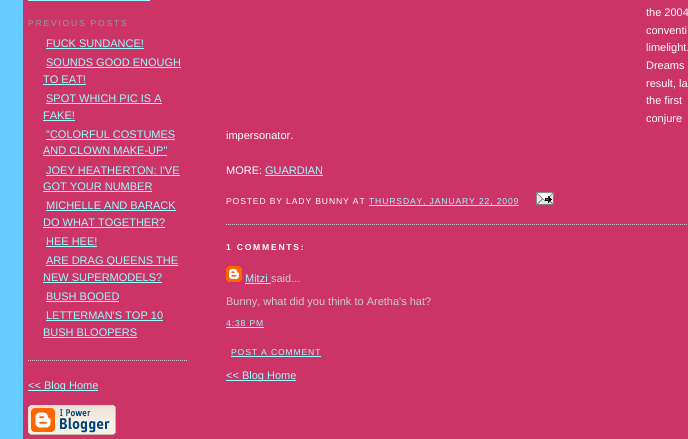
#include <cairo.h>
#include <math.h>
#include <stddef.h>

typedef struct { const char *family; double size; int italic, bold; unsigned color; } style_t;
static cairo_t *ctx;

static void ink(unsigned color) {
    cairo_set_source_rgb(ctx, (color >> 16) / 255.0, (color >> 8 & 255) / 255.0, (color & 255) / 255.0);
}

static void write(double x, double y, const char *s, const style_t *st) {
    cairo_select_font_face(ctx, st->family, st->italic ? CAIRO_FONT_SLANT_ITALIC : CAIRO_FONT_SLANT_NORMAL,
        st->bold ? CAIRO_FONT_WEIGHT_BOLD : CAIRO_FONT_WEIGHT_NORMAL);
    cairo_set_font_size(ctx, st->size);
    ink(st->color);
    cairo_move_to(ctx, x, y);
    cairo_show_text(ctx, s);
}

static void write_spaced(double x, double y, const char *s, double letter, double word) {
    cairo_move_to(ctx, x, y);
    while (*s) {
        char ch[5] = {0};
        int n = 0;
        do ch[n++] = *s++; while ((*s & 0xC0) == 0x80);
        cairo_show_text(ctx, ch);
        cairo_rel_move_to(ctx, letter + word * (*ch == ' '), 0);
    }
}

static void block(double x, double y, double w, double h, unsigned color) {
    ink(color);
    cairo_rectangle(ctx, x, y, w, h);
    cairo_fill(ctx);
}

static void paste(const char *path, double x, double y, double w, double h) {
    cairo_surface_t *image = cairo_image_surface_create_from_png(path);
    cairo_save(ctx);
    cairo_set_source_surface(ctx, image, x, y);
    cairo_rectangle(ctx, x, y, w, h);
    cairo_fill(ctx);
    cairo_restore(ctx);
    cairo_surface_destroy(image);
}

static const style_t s1 = {"Liberation Sans", 11, 0, 0, 0x99ffff};
static const style_t s2 = {"Liberation Sans", 11, 0, 0, 0xffffff};
static const style_t s3 = {"Liberation Sans", 11, 0, 0, 0xcccccc};

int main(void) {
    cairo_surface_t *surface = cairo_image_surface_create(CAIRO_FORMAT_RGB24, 688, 439);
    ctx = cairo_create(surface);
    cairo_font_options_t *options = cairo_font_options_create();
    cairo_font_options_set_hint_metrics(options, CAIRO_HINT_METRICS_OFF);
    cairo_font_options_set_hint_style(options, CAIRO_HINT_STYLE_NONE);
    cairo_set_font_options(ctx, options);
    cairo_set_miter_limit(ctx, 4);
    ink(0x66ccff);
    cairo_paint(ctx);
    block(23, 0, 665, 439, 0xcc3366);
    block(28, 0, 122, 1, 0x99ffff);
    cairo_select_font_face(ctx, "Liberation Sans", CAIRO_FONT_SLANT_NORMAL, CAIRO_FONT_WEIGHT_NORMAL);
    cairo_set_font_size(ctx, 8.6);
    ink(0x999999);
    write_spaced(28, 26, "PREVIOUS POSTS", 1.75, 0);
    cairo_new_path(ctx);
    cairo_move_to(ctx, 28, 360.5);
    cairo_line_to(ctx, 188, 360.5);
    ink(0xcccccc);
    cairo_set_line_width(ctx, 1);
    cairo_set_dash(ctx, (double[]){1, 1}, 2, 0);
    cairo_stroke(ctx);
    write(46, 47, "FUCK SUNDANCE!", &s1);
    block(46, 48, 98, 1, 0x99ffff);
    write(46, 66, "SOUNDS GOOD ENOUGH", &s1);
    block(46, 67, 135, 1, 0x99ffff);
    write(43, 83, "TO EAT!", &s1);
    block(43, 84, 43, 1, 0x99ffff);
    write(46, 102, "SPOT WHICH PIC IS A", &s1);
    block(46, 103, 116, 1, 0x99ffff);
    write(43, 119, "FAKE!", &s1);
    block(43, 120, 32, 1, 0x99ffff);
    write(46, 138, "\"COLORFUL COSTUMES", &s1);
    block(46, 139, 129, 1, 0x99ffff);
    write(43, 154, "AND CLOWN MAKE-UP\"", &s1);
    block(43, 155, 124, 1, 0x99ffff);
    write(46, 174, "JOEY HEATHERTON: I'VE", &s1);
    block(46, 175, 134, 1, 0x99ffff);
    write(43, 190, "GOT YOUR NUMBER", &s1);
    block(43, 191, 109, 1, 0x99ffff);
    write(46, 209, "MICHELLE AND BARACK", &s1);
    block(46, 210, 130, 1, 0x99ffff);
    write(43, 226, "DO WHAT TOGETHER?", &s1);
    block(43, 227, 122, 1, 0x99ffff);
    write(46, 245, "HEE HEE!", &s1);
    block(46, 246, 51, 1, 0x99ffff);
    block(46, 265, 132, 1, 0x99ffff);
    write(46, 264, "ARE DRAG QUEENS THE", &s1);
    write(43, 281, "NEW SUPERMODELS?", &s1);
    block(43, 282, 119, 1, 0x99ffff);
    write(46, 300, "BUSH BOOED", &s1);
    block(46, 301, 73, 1, 0x99ffff);
    write(46, 319, "LETTERMAN'S TOP 10", &s1);
    block(46, 320, 117, 1, 0x99ffff);
    write(43, 336, "BUSH BLOOPERS", &s1);
    block(43, 337, 94, 1, 0x99ffff);
    block(28, 390, 70, 1, 0x99ffff);
    write(28, 389, "<< Blog Home", &s1);
    paste("pic1.png", 28, 405, 88, 30);
    cairo_new_path(ctx);
    cairo_move_to(ctx, 226, 224.5);
    cairo_line_to(ctx, 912, 224.5);
    ink(0xcccccc);
    cairo_stroke(ctx);
    write(646, 16, "the 2004", &s2);
    write(646, 34, "conventi", &s2);
    write(646, 51, "limelight.", &s2);
    write(646, 69, "Dreams", &s2);
    write(646, 87, "result, la", &s2);
    write(646, 104, "the first", &s2);
    write(646, 122, "conjure", &s2);
    write(226, 139, "impersonator.", &s2);
    write(226, 174, "MORE:", &s2);
    write(265, 174, "GUARDIAN", &s1);
    block(265, 175, 58, 1, 0x99ffff);
    cairo_set_font_size(ctx, 8.6);
    ink(0xffffff);
    write_spaced(226, 204, "POSTED BY LADY BUNNY AT", 0.85, 0);
    block(369, 205, 150, 1, 0x99ffff);
    write_spaced(369, 204, "THURSDAY, JANUARY 22, 2009", 0.85, 0);
    paste("pic2.png", 536, 192, 18, 13);
    cairo_select_font_face(ctx, "Liberation Sans", CAIRO_FONT_SLANT_NORMAL, CAIRO_FONT_WEIGHT_BOLD);
    ink(0xffffff);
    write_spaced(226, 250, "1 COMMENTS:", 1.75, 0);
    paste("pic3.png", 226, 266, 16, 16);
    write(245, 282, "Mitzi", &s1);
    block(245, 283, 26, 1, 0x99ffff);
    write(271, 282, "said...", &s3);
    write(226, 305, "Bunny, what did you think to Aretha's hat?", &s3);
    cairo_set_font_size(ctx, 8.6);
    ink(0x99ffff);
    write_spaced(226, 326, "4:38 PM", 0.85, 0);
    block(226, 327, 38, 1, 0x99ffff);
    write_spaced(231, 355, "POST A COMMENT", 0.85, 0);
    block(231, 356, 90, 1, 0x99ffff);
    block(226, 380, 70, 1, 0x99ffff);
    write(226, 379, "<< Blog Home", &s1);
    cairo_surface_write_to_png(surface, "screenshot.png");
    cairo_font_options_destroy(options);
    cairo_destroy(ctx);
    cairo_surface_destroy(surface);
    return 0;
}
